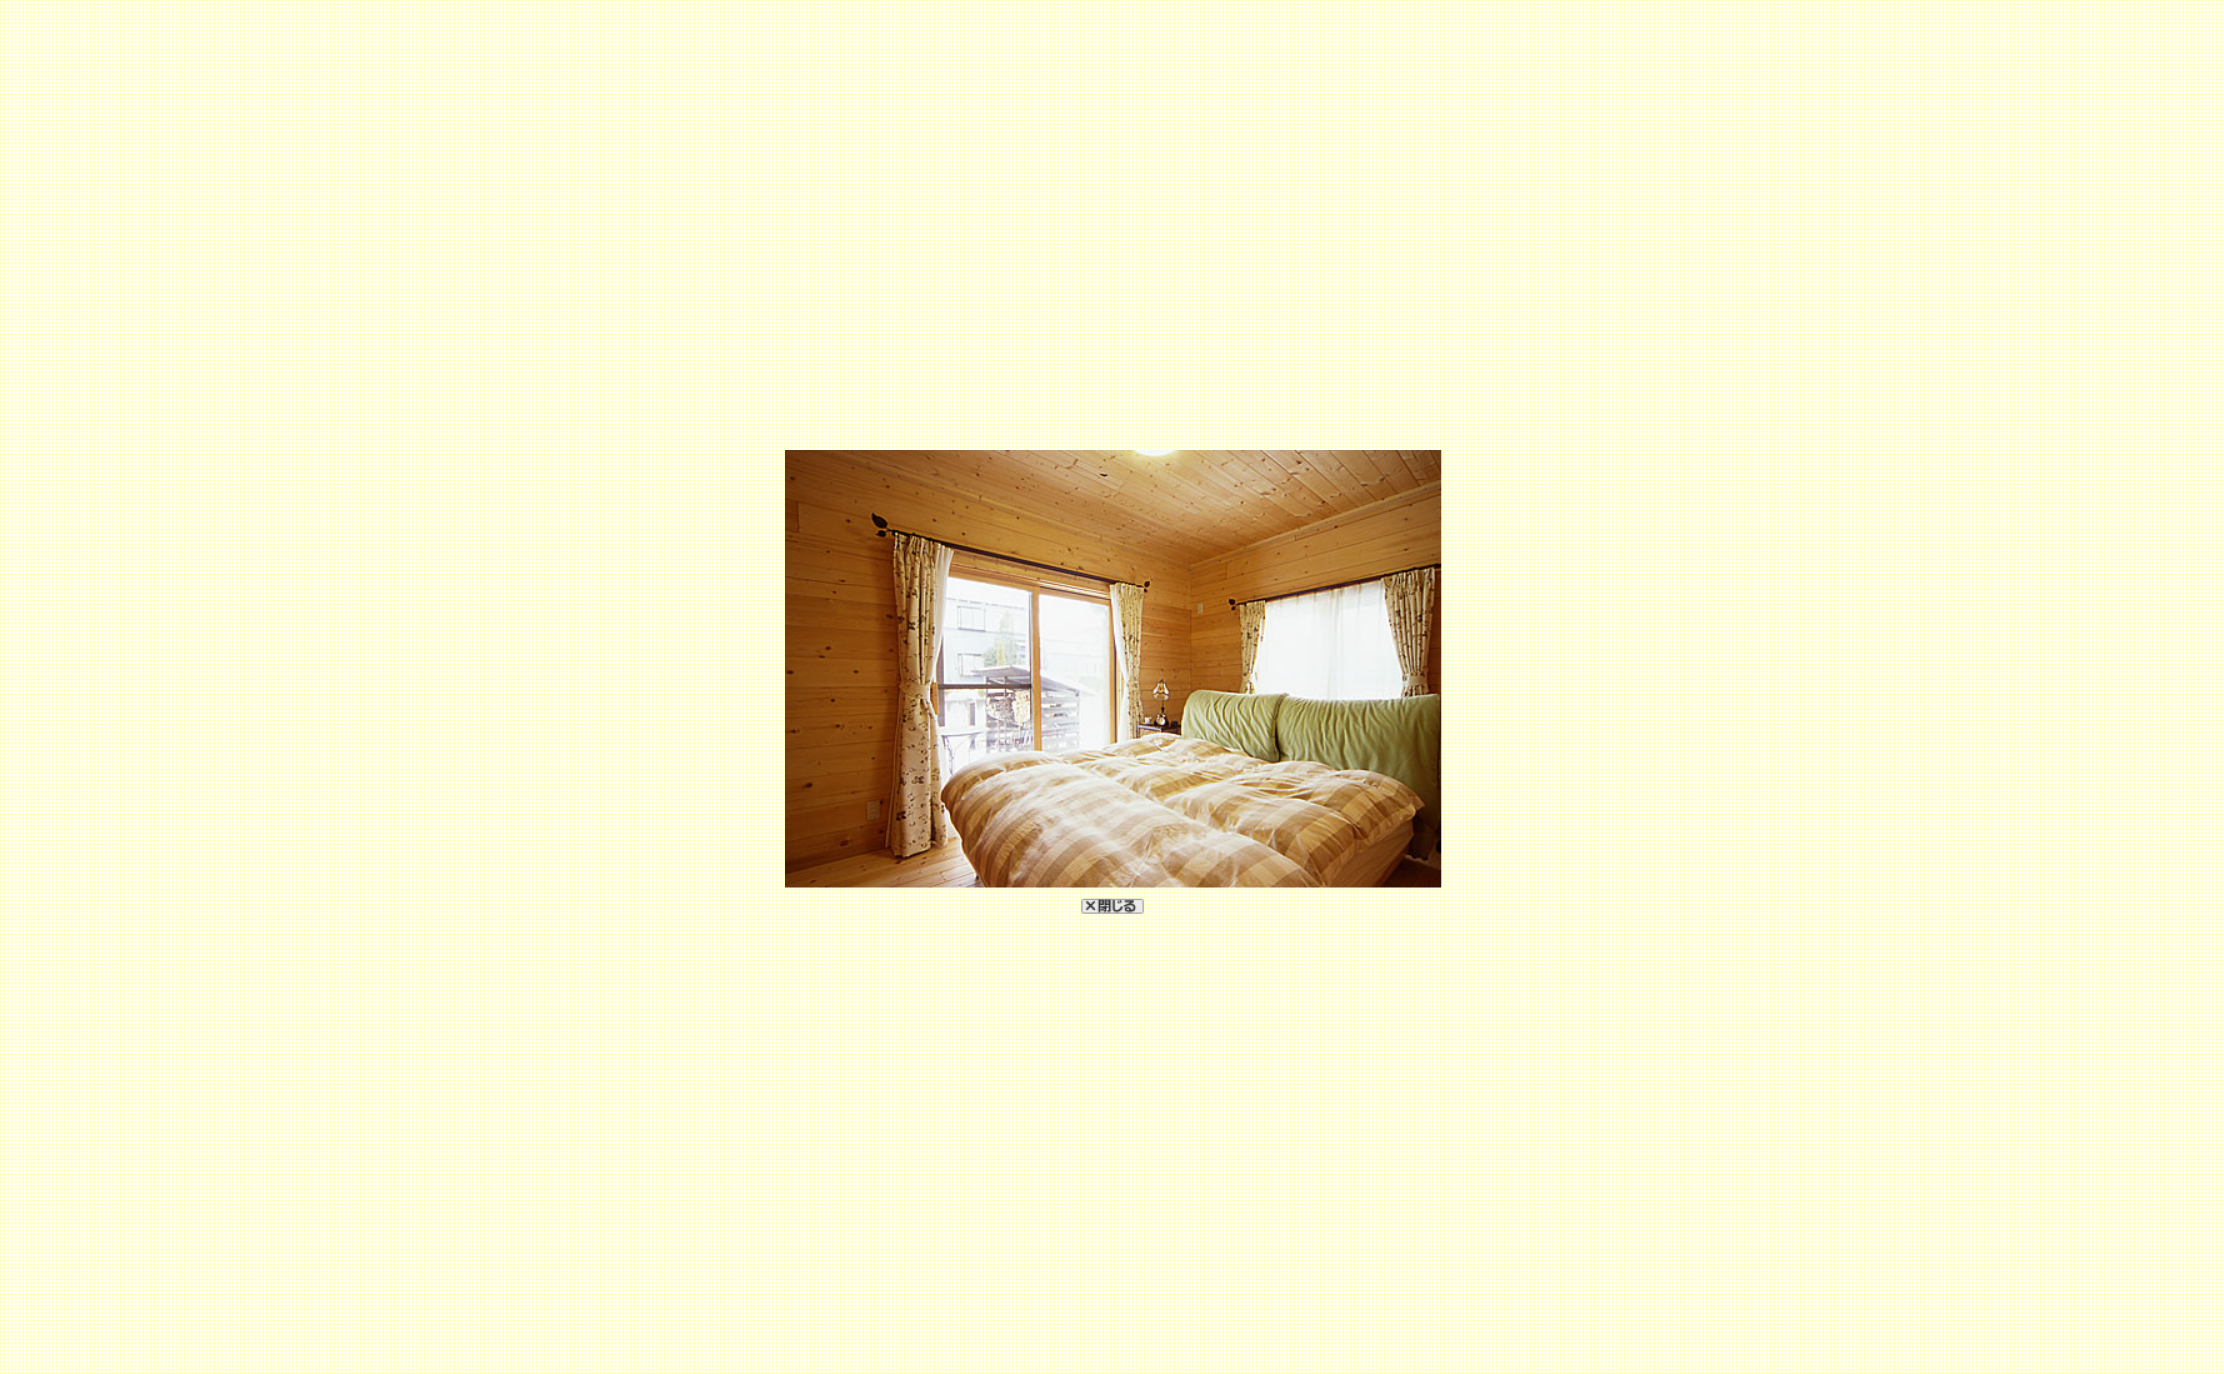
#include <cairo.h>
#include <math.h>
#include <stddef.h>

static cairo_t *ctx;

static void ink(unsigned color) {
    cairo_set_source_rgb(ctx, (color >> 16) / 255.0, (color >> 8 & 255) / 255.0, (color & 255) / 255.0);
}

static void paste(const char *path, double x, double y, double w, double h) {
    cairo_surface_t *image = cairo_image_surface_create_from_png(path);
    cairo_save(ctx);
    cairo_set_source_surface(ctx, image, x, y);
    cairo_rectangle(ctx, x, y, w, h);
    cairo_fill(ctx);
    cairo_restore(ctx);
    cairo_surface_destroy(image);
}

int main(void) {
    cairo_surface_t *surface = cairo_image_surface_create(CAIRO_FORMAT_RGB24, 2224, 1374);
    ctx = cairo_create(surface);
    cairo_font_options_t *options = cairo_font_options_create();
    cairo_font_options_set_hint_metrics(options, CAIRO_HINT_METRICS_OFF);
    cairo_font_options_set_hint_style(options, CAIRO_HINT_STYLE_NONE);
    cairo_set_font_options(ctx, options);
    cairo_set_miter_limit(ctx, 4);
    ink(0xffffff);
    cairo_paint(ctx);
    paste("pic1.png", 0, 0, 2224, 1374);
    paste("pic2.png", 785, 450, 657, 438);
    paste("pic3.png", 1081, 898, 63, 16);
    cairo_surface_write_to_png(surface, "screenshot.png");
    cairo_font_options_destroy(options);
    cairo_destroy(ctx);
    cairo_surface_destroy(surface);
    return 0;
}
